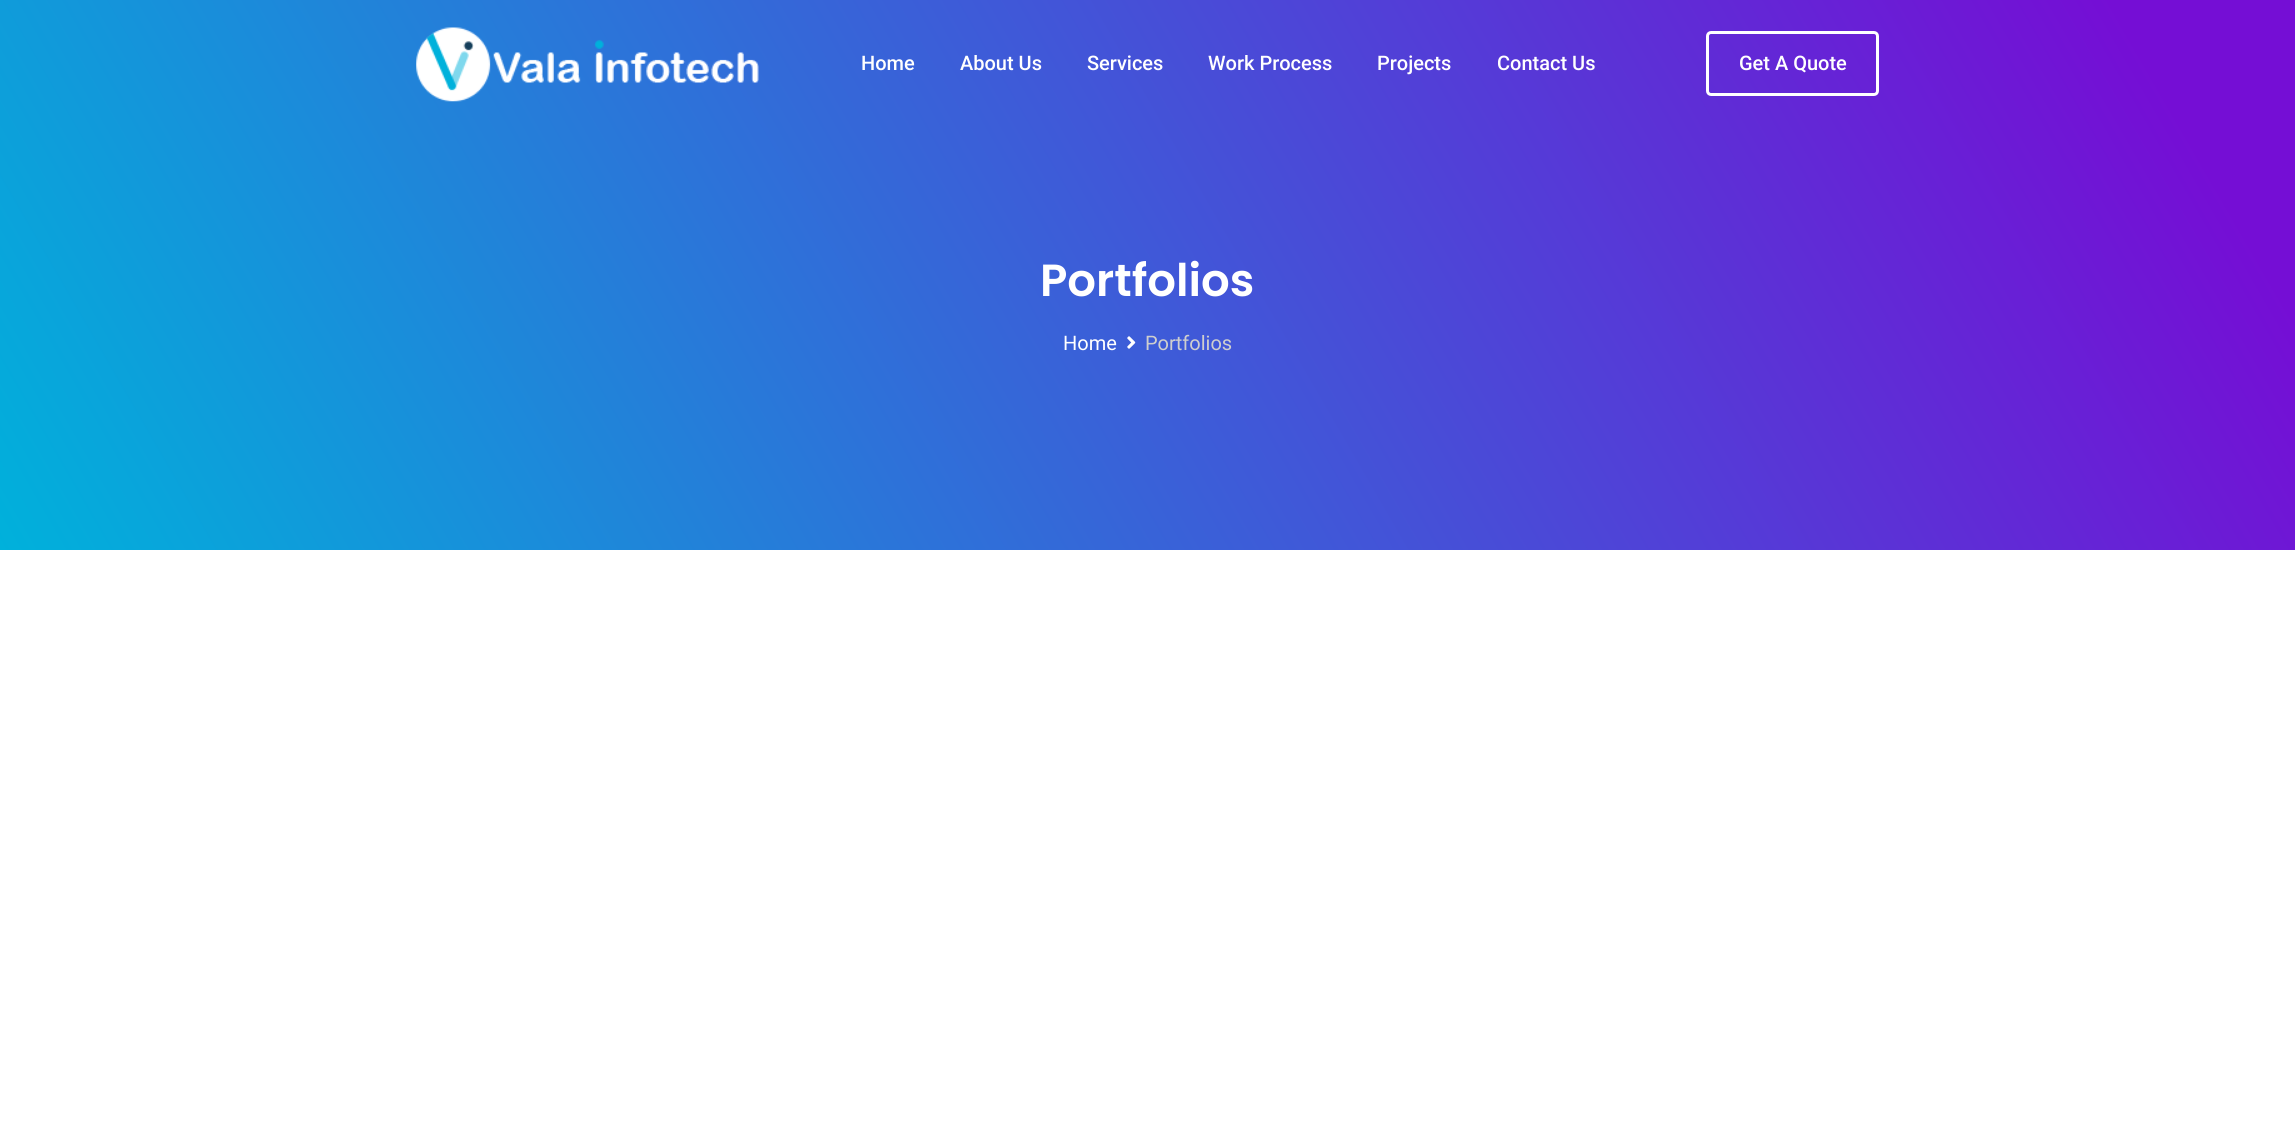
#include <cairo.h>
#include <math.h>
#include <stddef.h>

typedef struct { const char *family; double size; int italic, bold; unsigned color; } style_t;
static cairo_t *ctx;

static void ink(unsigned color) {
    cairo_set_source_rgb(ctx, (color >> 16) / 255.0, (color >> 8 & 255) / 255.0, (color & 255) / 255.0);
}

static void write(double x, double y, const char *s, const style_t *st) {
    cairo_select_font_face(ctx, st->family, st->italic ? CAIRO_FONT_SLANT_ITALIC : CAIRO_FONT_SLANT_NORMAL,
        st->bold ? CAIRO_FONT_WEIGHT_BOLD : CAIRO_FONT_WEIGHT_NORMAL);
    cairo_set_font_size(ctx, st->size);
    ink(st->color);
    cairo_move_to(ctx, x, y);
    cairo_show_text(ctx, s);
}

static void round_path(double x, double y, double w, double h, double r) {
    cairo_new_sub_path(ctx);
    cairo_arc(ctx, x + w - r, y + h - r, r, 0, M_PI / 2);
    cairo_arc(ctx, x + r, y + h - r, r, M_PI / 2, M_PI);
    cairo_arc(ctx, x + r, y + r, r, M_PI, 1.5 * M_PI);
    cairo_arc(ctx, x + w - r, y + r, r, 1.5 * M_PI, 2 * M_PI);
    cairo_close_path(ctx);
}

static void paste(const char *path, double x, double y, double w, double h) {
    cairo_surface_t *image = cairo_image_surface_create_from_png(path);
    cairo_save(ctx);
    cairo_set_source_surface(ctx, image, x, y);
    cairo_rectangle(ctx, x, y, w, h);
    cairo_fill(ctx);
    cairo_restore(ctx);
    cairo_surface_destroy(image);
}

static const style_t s1 = {"Roboto Medium", 20, 0, 0, 0xffffff};
static const style_t s2 = {"Poppins SemiBold", 45, 0, 0, 0xffffff};
static const style_t s3 = {"Roboto", 20, 0, 0, 0xffffff};
static const style_t s4 = {"Roboto", 20, 0, 0, 0xcecece};

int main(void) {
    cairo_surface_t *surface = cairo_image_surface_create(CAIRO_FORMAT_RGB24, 2295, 1145);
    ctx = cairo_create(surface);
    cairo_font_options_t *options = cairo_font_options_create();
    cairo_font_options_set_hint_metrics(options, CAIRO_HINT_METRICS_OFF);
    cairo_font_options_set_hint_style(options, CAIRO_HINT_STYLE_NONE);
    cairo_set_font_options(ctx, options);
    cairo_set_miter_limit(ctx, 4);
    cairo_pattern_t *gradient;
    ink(0xffffff);
    cairo_paint(ctx);
    gradient = cairo_pattern_create_linear(168, 841, 2127, -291);
    cairo_pattern_add_color_stop_rgba(gradient, 0, 0, 0.694, 0.859, 1);
    cairo_pattern_add_color_stop_rgba(gradient, 0.93, 0.459, 0.055, 0.835, 1);
    cairo_set_source(ctx, gradient);
    cairo_pattern_destroy(gradient);
    cairo_rectangle(ctx, 0, 0, 2295, 550);
    cairo_fill(ctx);
    paste("pic1.png", 416, 27, 343, 75);
    write(861, 70, "Home", &s1);
    write(960, 70, "About Us", &s1);
    write(1087, 70, "Services", &s1);
    write(1208, 70, "Work Process", &s1);
    write(1377, 70, "Projects", &s1);
    write(1497, 70, "Contact Us", &s1);
    round_path(1707.5, 32.5, 170, 62, 3.5);
    cairo_set_line_width(ctx, 3);
    cairo_stroke(ctx);
    write(1739, 70, "Get A Quote", &s1);
    write(1040, 296, "Portfolios", &s2);
    write(1063, 350, "Home", &s3);
    paste("pic2.png", 1127, 336, 9, 13);
    write(1145, 350, "Portfolios", &s4);
    cairo_surface_write_to_png(surface, "screenshot.png");
    cairo_font_options_destroy(options);
    cairo_destroy(ctx);
    cairo_surface_destroy(surface);
    return 0;
}
